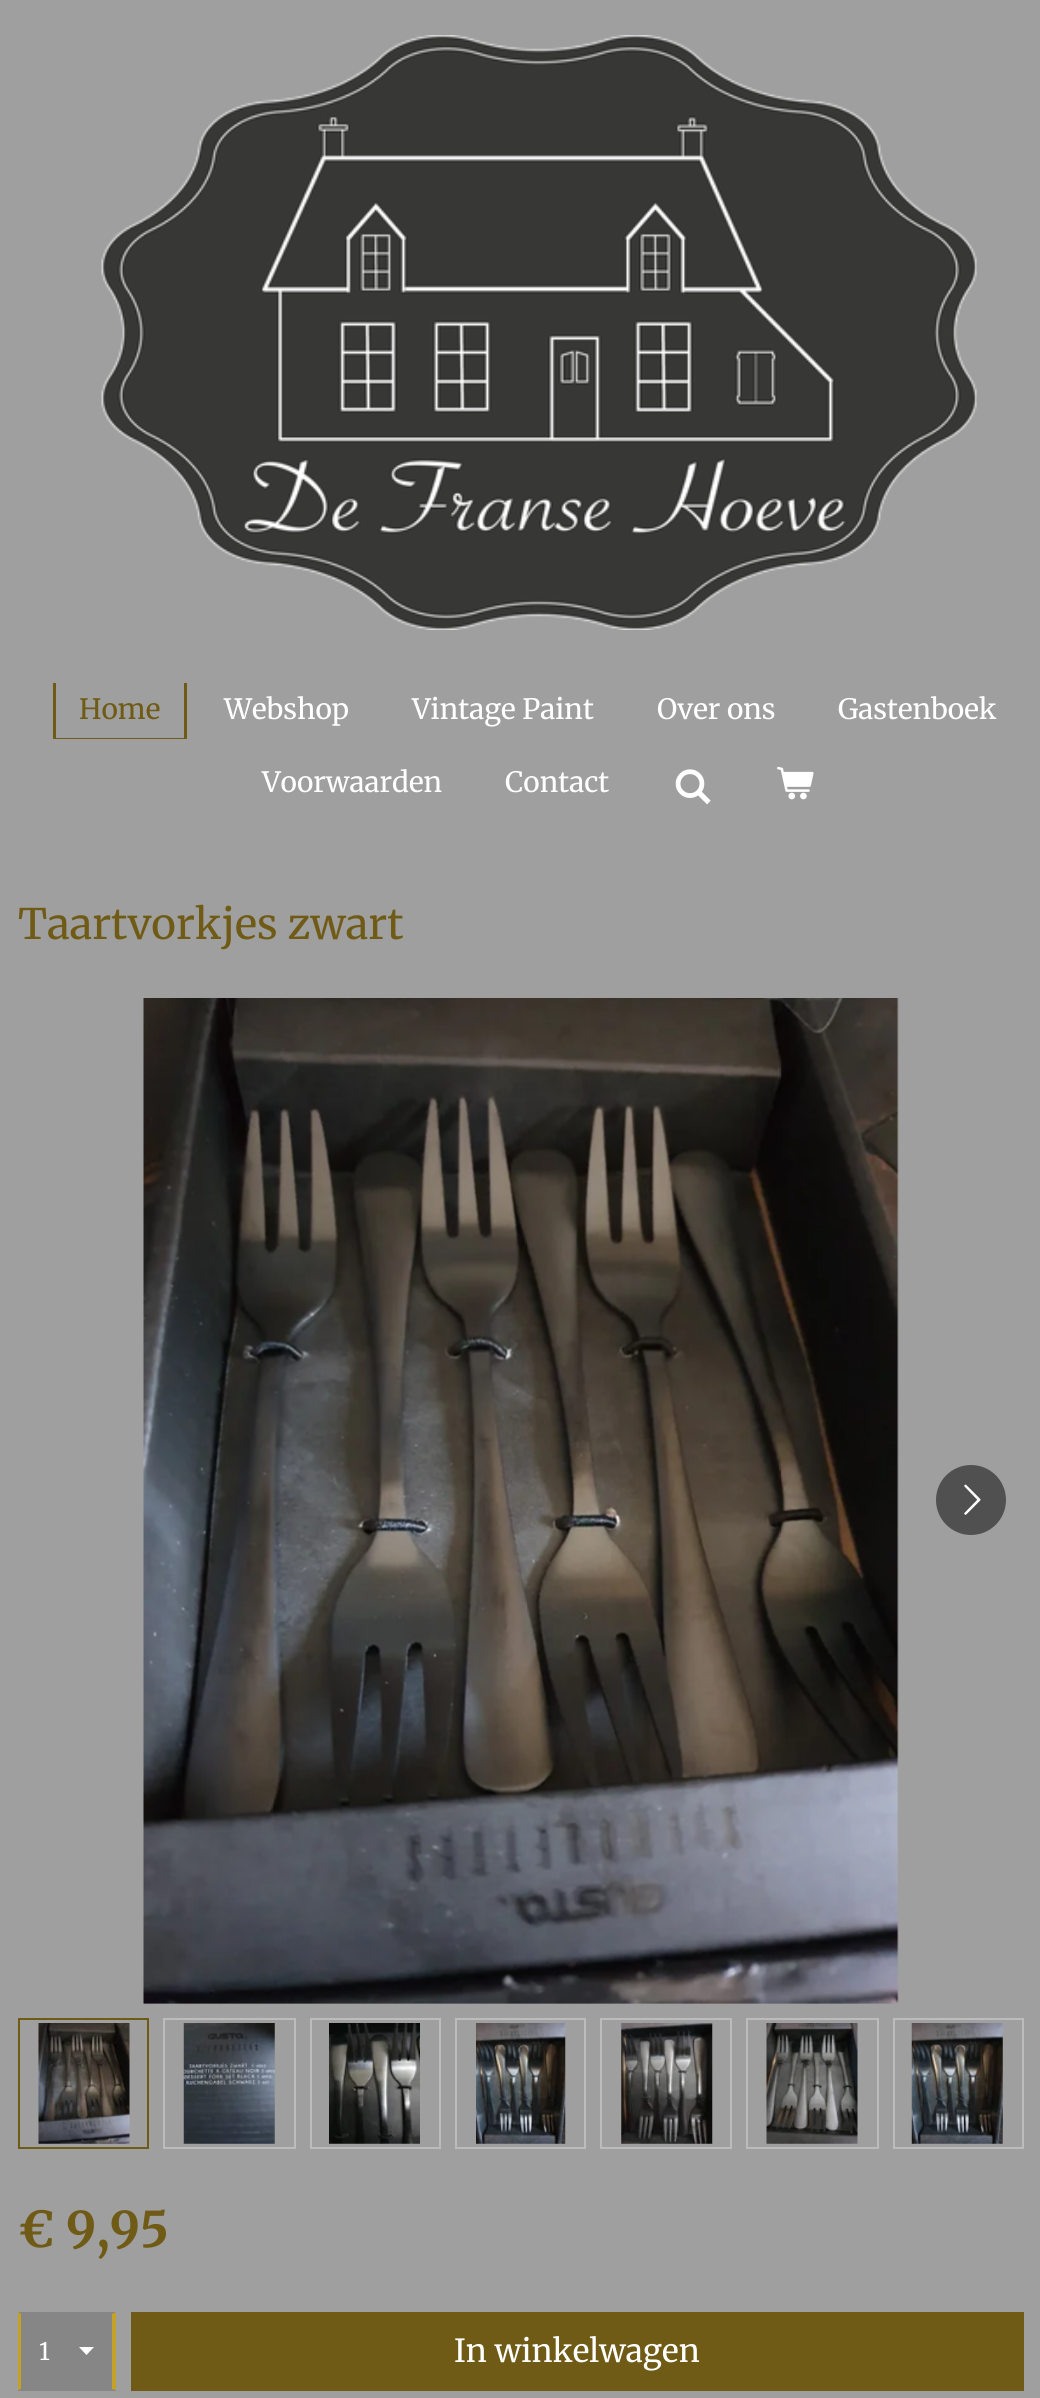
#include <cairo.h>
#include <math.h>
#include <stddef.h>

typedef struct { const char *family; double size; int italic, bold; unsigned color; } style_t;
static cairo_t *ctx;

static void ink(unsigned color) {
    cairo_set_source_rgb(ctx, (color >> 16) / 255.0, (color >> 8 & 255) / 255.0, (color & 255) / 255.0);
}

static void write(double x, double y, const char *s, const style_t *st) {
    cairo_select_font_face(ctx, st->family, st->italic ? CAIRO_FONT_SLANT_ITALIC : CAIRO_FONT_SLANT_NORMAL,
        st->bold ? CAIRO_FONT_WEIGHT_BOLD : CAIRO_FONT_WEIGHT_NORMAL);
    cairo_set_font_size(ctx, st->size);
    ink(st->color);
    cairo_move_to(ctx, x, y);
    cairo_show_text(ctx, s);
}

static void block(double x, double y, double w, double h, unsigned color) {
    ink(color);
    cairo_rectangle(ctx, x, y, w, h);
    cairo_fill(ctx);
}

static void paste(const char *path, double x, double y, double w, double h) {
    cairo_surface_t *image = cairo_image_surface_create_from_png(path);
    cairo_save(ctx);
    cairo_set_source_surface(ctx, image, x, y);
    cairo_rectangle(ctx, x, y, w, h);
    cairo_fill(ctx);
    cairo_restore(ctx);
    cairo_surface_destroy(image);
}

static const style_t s1 = {"Merriweather", 28, 0, 0, 0x6f5b16};
static const style_t s2 = {"Merriweather", 28, 0, 0, 0xffffff};
static const style_t s3 = {"Merriweather", 42, 0, 0, 0x6f5b16};
static const style_t s4 = {"Merriweather", 49, 0, 1, 0x6f5b16};
static const style_t s5 = {"Merriweather", 24, 0, 0, 0xffffff};
static const style_t s6 = {"Merriweather", 31.75, 0, 0, 0xffffff};

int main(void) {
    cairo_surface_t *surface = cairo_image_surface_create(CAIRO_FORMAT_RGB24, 1040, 2398);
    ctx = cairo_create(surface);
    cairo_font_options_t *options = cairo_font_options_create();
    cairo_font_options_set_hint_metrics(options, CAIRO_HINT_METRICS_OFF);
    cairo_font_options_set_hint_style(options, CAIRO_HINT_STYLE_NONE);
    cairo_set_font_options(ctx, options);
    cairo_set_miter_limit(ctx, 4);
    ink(0x9f9f9f);
    cairo_paint(ctx);
    paste("pic1.png", 101, 35, 876, 595);
    ink(0x6f5b16);
    cairo_new_path(ctx);
    cairo_move_to(ctx, 60, 738);
    cairo_line_to(ctx, 60, 739);
    cairo_line_to(ctx, 187, 739);
    cairo_line_to(ctx, 187, 683);
    cairo_line_to(ctx, 184, 683);
    cairo_line_to(ctx, 184, 738);
    cairo_close_path(ctx);
    cairo_fill(ctx);
    cairo_new_path(ctx);
    cairo_move_to(ctx, 53, 683);
    cairo_line_to(ctx, 53, 739);
    cairo_line_to(ctx, 180, 739);
    cairo_line_to(ctx, 180, 738);
    cairo_line_to(ctx, 56, 738);
    cairo_line_to(ctx, 56, 683);
    cairo_close_path(ctx);
    cairo_fill(ctx);
    write(79, 719, "Home", &s1);
    write(224, 719, "Webshop", &s2);
    write(412, 719, "Vintage Paint", &s2);
    write(657, 719, "Over ons", &s2);
    write(838, 719, "Gastenboek", &s2);
    write(262, 792, "Voorwaarden", &s2);
    write(505, 792, "Contact", &s2);
    paste("pic2.png", 675, 769, 36, 36);
    paste("pic3.png", 777, 766, 37, 34);
    write(18, 939, "Taartvorkjes zwart", &s3);
    paste("pic4.png", 143, 998, 756, 1006);
    ink(0x505050);
    cairo_arc(ctx, 971, 1500, 35, 0, 2 * M_PI);
    cairo_fill(ctx);
    paste("pic5.png", 964, 1484, 17, 31);
    cairo_rectangle(ctx, 19, 2019, 129, 129);
    ink(0x6f5b16);
    cairo_stroke(ctx);
    paste("pic6.png", 38, 2023, 92, 121);
    cairo_rectangle(ctx, 164, 2019, 131, 129);
    ink(0xbcbcbc);
    cairo_stroke(ctx);
    paste("pic7.png", 183, 2023, 92, 121);
    cairo_rectangle(ctx, 311, 2019, 129, 129);
    cairo_stroke(ctx);
    paste("pic8.png", 329, 2023, 91, 121);
    cairo_rectangle(ctx, 456, 2019, 129, 129);
    cairo_stroke(ctx);
    paste("pic9.png", 476, 2023, 90, 121);
    cairo_rectangle(ctx, 601, 2019, 130, 129);
    cairo_stroke(ctx);
    paste("pic10.png", 621, 2023, 92, 121);
    cairo_rectangle(ctx, 747, 2019, 131, 129);
    cairo_stroke(ctx);
    paste("pic11.png", 766, 2023, 92, 121);
    cairo_rectangle(ctx, 894, 2019, 129, 129);
    cairo_stroke(ctx);
    paste("pic12.png", 911, 2023, 92, 121);
    write(18, 2247, "€ 9,95", &s4);
    block(18, 2312, 98, 79, 0x868686);
    ink(0xffffff);
    cairo_new_path(ctx);
    cairo_move_to(ctx, 86.5, 2355);
    cairo_line_to(ctx, 79, 2347);
    cairo_line_to(ctx, 94, 2347);
    cairo_close_path(ctx);
    cairo_fill(ctx);
    ink(0xc4a127);
    cairo_new_path(ctx);
    cairo_move_to(ctx, 116, 2312);
    cairo_line_to(ctx, 116, 2390);
    cairo_line_to(ctx, 112, 2389);
    cairo_line_to(ctx, 112, 2314);
    cairo_close_path(ctx);
    cairo_fill(ctx);
    cairo_new_path(ctx);
    cairo_move_to(ctx, 18, 2390);
    cairo_line_to(ctx, 18, 2312);
    cairo_line_to(ctx, 21, 2314);
    cairo_line_to(ctx, 21, 2389);
    cairo_close_path(ctx);
    cairo_fill(ctx);
    write(39, 2360, "1", &s5);
    block(131, 2312, 893, 79, 0x6f5b16);
    write(454, 2362, "In winkelwagen", &s6);
    cairo_surface_write_to_png(surface, "screenshot.png");
    cairo_font_options_destroy(options);
    cairo_destroy(ctx);
    cairo_surface_destroy(surface);
    return 0;
}
